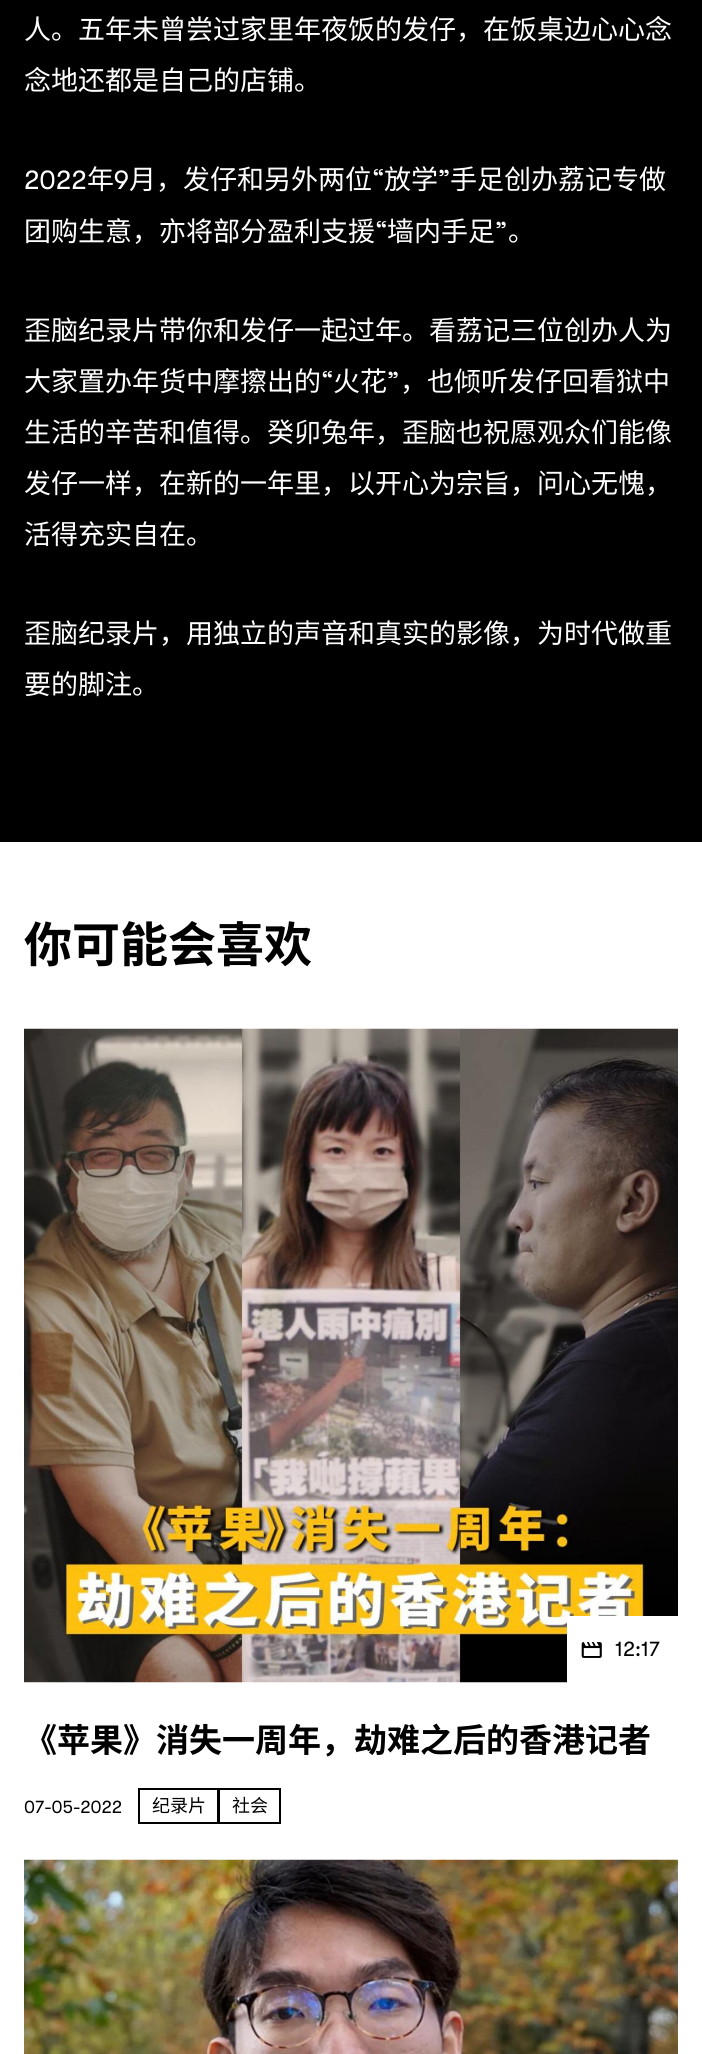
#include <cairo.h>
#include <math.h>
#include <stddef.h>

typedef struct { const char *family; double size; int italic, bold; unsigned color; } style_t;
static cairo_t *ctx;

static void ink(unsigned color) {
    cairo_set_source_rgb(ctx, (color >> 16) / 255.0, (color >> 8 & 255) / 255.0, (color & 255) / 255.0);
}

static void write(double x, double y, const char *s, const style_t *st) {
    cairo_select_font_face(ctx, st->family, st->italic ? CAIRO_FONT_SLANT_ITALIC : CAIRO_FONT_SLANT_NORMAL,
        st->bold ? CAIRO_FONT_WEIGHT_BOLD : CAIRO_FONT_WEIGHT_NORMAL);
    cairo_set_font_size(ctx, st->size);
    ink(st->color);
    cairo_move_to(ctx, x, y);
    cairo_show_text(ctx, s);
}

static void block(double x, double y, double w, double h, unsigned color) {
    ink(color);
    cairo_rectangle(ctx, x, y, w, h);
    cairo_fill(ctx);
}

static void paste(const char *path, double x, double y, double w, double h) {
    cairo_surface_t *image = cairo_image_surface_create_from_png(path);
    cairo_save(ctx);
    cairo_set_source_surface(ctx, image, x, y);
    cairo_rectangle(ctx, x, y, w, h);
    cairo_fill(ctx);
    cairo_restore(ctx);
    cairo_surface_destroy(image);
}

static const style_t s1 = {"Noto Sans SC", 27, 0, 0, 0xffffff};
static const style_t s2 = {"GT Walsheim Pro", 27, 0, 0, 0xffffff};
static const style_t s3 = {"Noto Sans SC", 48, 0, 1, 0x000000};
static const style_t s4 = {"GT Walsheim Pro", 21, 0, 0, 0x000000};
static const style_t s5 = {"Noto Sans SC", 33, 0, 1, 0x000000};
static const style_t s6 = {"GT Walsheim Pro", 18, 0, 0, 0x000000};
static const style_t s7 = {"Noto Sans SC", 18, 0, 0, 0x000000};

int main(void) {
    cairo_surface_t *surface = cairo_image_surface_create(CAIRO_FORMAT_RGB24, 702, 2054);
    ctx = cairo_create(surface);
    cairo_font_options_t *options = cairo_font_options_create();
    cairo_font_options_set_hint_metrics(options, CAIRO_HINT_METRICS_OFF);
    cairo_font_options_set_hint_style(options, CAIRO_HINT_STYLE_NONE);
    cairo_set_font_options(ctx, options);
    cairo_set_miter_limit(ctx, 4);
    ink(0xffffff);
    cairo_paint(ctx);
    block(0, 0, 702, 842, 0x000000);
    write(24, 39, "人。五年未曾尝过家里年夜饭的发仔，在饭桌边心心念", &s1);
    write(24, 90, "念地还都是自己的店铺。", &s1);
    write(24, 189, "2022", &s2);
    write(87, 189, "年", &s1);
    write(114, 189, "9", &s2);
    write(129, 189, "月，发仔和另外两位", &s1);
    write(372, 189, "“", &s2);
    write(384, 189, "放学", &s1);
    write(438, 189, "”", &s2);
    write(450, 189, "手足创办荔记专做", &s1);
    write(24, 241, "团购生意，亦将部分盈利支援", &s1);
    write(375, 241, "“", &s2);
    write(387, 241, "墙内手足", &s1);
    write(495, 241, "”", &s2);
    write(508, 241, "。", &s1);
    write(24, 340, "歪脑纪录片带你和发仔一起过年。看荔记三位创办人为", &s1);
    write(24, 391, "大家置办年货中摩擦出的", &s1);
    write(321, 391, "“", &s2);
    write(333, 391, "火花", &s1);
    write(387, 391, "”", &s2);
    write(400, 391, "，也倾听发仔回看狱中", &s1);
    write(24, 442, "生活的辛苦和值得。癸卯兔年，歪脑也祝愿观众们能像", &s1);
    write(24, 493, "发仔一样，在新的一年里，以开心为宗旨，问心无愧，", &s1);
    write(24, 544, "活得充实自在。", &s1);
    write(24, 643, "歪脑纪录片，用独立的声音和真实的影像，为时代做重", &s1);
    write(24, 694, "要的脚注。", &s1);
    write(24, 962, "你可能会喜欢", &s3);
    paste("pic1.png", 24, 1028, 654, 655);
    block(567, 1616, 111, 67, 0xffffff);
    paste("pic2.png", 581, 1642, 21, 16);
    write(615, 1656, "12:17", &s4);
    write(24, 1752, "《苹果》消失一周年，劫难之后的香港记者", &s5);
    write(24, 1813, "07-05-2022", &s6);
    cairo_rectangle(ctx, 139, 1789, 79, 34);
    cairo_stroke(ctx);
    write(152, 1812, "纪录片", &s7);
    cairo_rectangle(ctx, 219, 1789, 61, 34);
    cairo_stroke(ctx);
    write(232, 1812, "社会", &s7);
    paste("pic3.png", 24, 1859, 654, 195);
    cairo_surface_write_to_png(surface, "screenshot.png");
    cairo_font_options_destroy(options);
    cairo_destroy(ctx);
    cairo_surface_destroy(surface);
    return 0;
}
